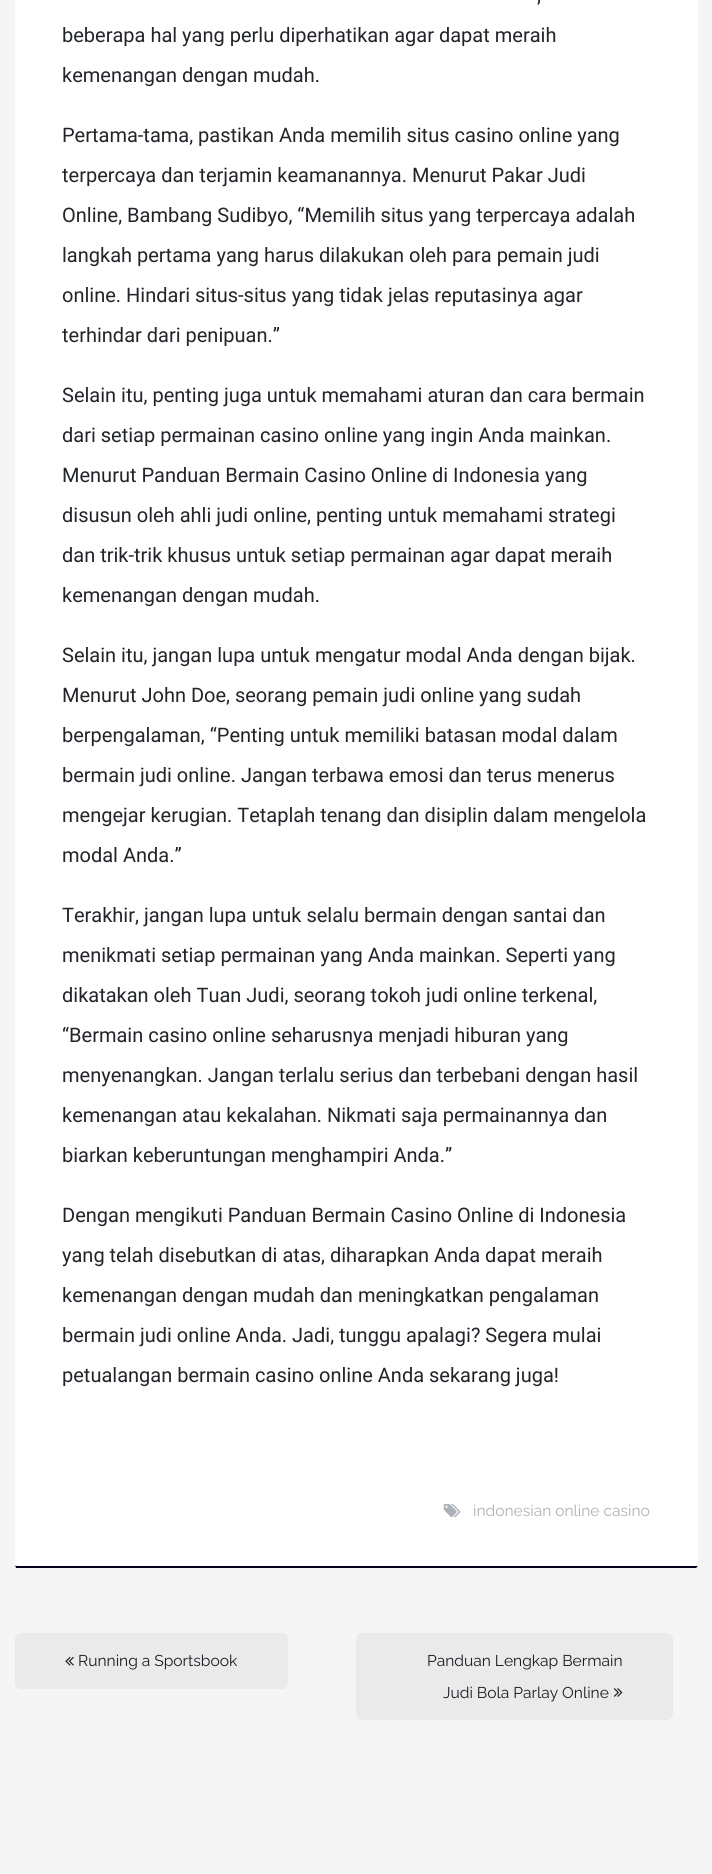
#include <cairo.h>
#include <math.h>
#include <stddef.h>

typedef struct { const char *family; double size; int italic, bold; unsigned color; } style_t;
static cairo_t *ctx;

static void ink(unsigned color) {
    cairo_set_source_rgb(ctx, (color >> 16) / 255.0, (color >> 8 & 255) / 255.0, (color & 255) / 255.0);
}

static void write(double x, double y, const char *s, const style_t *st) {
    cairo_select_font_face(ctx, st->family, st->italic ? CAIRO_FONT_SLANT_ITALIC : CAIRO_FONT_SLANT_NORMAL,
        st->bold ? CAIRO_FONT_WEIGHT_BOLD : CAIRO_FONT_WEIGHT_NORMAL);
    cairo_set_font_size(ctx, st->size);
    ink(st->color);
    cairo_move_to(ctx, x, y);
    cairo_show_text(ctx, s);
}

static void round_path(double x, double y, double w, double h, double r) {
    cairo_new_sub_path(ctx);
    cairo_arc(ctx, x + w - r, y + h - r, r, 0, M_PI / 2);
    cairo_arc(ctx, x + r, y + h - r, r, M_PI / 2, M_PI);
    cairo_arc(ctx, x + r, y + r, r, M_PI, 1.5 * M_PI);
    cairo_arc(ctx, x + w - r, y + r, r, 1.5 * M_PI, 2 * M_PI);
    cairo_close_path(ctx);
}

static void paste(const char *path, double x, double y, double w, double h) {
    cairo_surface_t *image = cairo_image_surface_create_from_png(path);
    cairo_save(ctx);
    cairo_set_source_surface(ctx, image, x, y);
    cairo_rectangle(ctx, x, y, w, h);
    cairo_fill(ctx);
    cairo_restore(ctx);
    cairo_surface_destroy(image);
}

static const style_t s1 = {"Roboto", 20, 0, 0, 0x212529};
static const style_t s2 = {"Raleway", 15.6, 0, 0, 0xadb2b8};
static const style_t s3 = {"Raleway", 15.6, 0, 0, 0x191e24};

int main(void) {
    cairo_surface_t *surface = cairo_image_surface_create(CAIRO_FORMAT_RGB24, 712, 1874);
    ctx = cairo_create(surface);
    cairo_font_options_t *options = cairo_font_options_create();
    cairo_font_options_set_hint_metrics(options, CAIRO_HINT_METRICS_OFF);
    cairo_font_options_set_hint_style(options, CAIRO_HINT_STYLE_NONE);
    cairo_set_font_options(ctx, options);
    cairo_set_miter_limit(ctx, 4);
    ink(0xf5f5f5);
    cairo_paint(ctx);
    ink(0xffffff);
    round_path(15, -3, 683, 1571, 2.5);
    cairo_fill(ctx);
    ink(0x030120);
    cairo_new_path(ctx);
    cairo_move_to(ctx, 15, 1565);
    cairo_curve_to(ctx, 15, 1566, 17, 1566, 18, 1566);
    cairo_line_to(ctx, 698, 1566);
    cairo_line_to(ctx, 696, 1568);
    cairo_line_to(ctx, 16, 1568);
    cairo_close_path(ctx);
    cairo_fill(ctx);
    write(537, 2, ",", &s1);
    write(62, 42, "beberapa hal yang perlu diperhatikan agar dapat meraih", &s1);
    write(62, 82, "kemenangan dengan mudah.", &s1);
    write(62, 142, "Pertama-tama, pastikan Anda memilih situs casino online yang", &s1);
    write(62, 182, "terpercaya dan terjamin keamanannya. Menurut Pakar Judi", &s1);
    write(62, 222, "Online, Bambang Sudibyo, “Memilih situs yang terpercaya adalah", &s1);
    write(62, 262, "langkah pertama yang harus dilakukan oleh para pemain judi", &s1);
    write(62, 302, "online. Hindari situs-situs yang tidak jelas reputasinya agar", &s1);
    write(62, 342, "terhindar dari penipuan.”", &s1);
    write(62, 402, "Selain itu, penting juga untuk memahami aturan dan cara bermain", &s1);
    write(62, 442, "dari setiap permainan casino online yang ingin Anda mainkan.", &s1);
    write(62, 482, "Menurut Panduan Bermain Casino Online di Indonesia yang", &s1);
    write(62, 522, "disusun oleh ahli judi online, penting untuk memahami strategi", &s1);
    write(62, 562, "dan trik-trik khusus untuk setiap permainan agar dapat meraih", &s1);
    write(62, 602, "kemenangan dengan mudah.", &s1);
    write(62, 662, "Selain itu, jangan lupa untuk mengatur modal Anda dengan bijak.", &s1);
    write(62, 702, "Menurut John Doe, seorang pemain judi online yang sudah", &s1);
    write(62, 742, "berpengalaman, “Penting untuk memiliki batasan modal dalam", &s1);
    write(62, 782, "bermain judi online. Jangan terbawa emosi dan terus menerus", &s1);
    write(62, 822, "mengejar kerugian. Tetaplah tenang dan disiplin dalam mengelola", &s1);
    write(62, 862, "modal Anda.”", &s1);
    write(62, 922, "Terakhir, jangan lupa untuk selalu bermain dengan santai dan", &s1);
    write(62, 962, "menikmati setiap permainan yang Anda mainkan. Seperti yang", &s1);
    write(62, 1002, "dikatakan oleh Tuan Judi, seorang tokoh judi online terkenal,", &s1);
    write(62, 1042, "“Bermain casino online seharusnya menjadi hiburan yang", &s1);
    write(62, 1082, "menyenangkan. Jangan terlalu serius dan terbebani dengan hasil", &s1);
    write(62, 1122, "kemenangan atau kekalahan. Nikmati saja permainannya dan", &s1);
    write(62, 1162, "biarkan keberuntungan menghampiri Anda.”", &s1);
    write(62, 1222, "Dengan mengikuti Panduan Bermain Casino Online di Indonesia", &s1);
    write(62, 1262, "yang telah disebutkan di atas, diharapkan Anda dapat meraih", &s1);
    write(62, 1302, "kemenangan dengan mudah dan meningkatkan pengalaman", &s1);
    write(62, 1342, "bermain judi online Anda. Jadi, tunggu apalagi? Segera mulai", &s1);
    write(62, 1382, "petualangan bermain casino online Anda sekarang juga!", &s1);
    paste("pic1.png", 443, 1504, 18, 14);
    write(473, 1516, "indonesian online casino", &s2);
    ink(0xeaeaea);
    round_path(15, 1633, 273, 56, 6);
    cairo_fill(ctx);
    paste("pic2.png", 65, 1656, 9, 10);
    write(78, 1666, "Running a Sportsbook", &s3);
    ink(0xeaeaea);
    round_path(356, 1633, 317, 87, 6);
    cairo_fill(ctx);
    write(427, 1666, "Panduan Lengkap Bermain", &s3);
    write(443, 1698, "Judi Bola Parlay Online", &s3);
    paste("pic3.png", 613, 1688, 10, 9);
    cairo_surface_write_to_png(surface, "screenshot.png");
    cairo_font_options_destroy(options);
    cairo_destroy(ctx);
    cairo_surface_destroy(surface);
    return 0;
}
